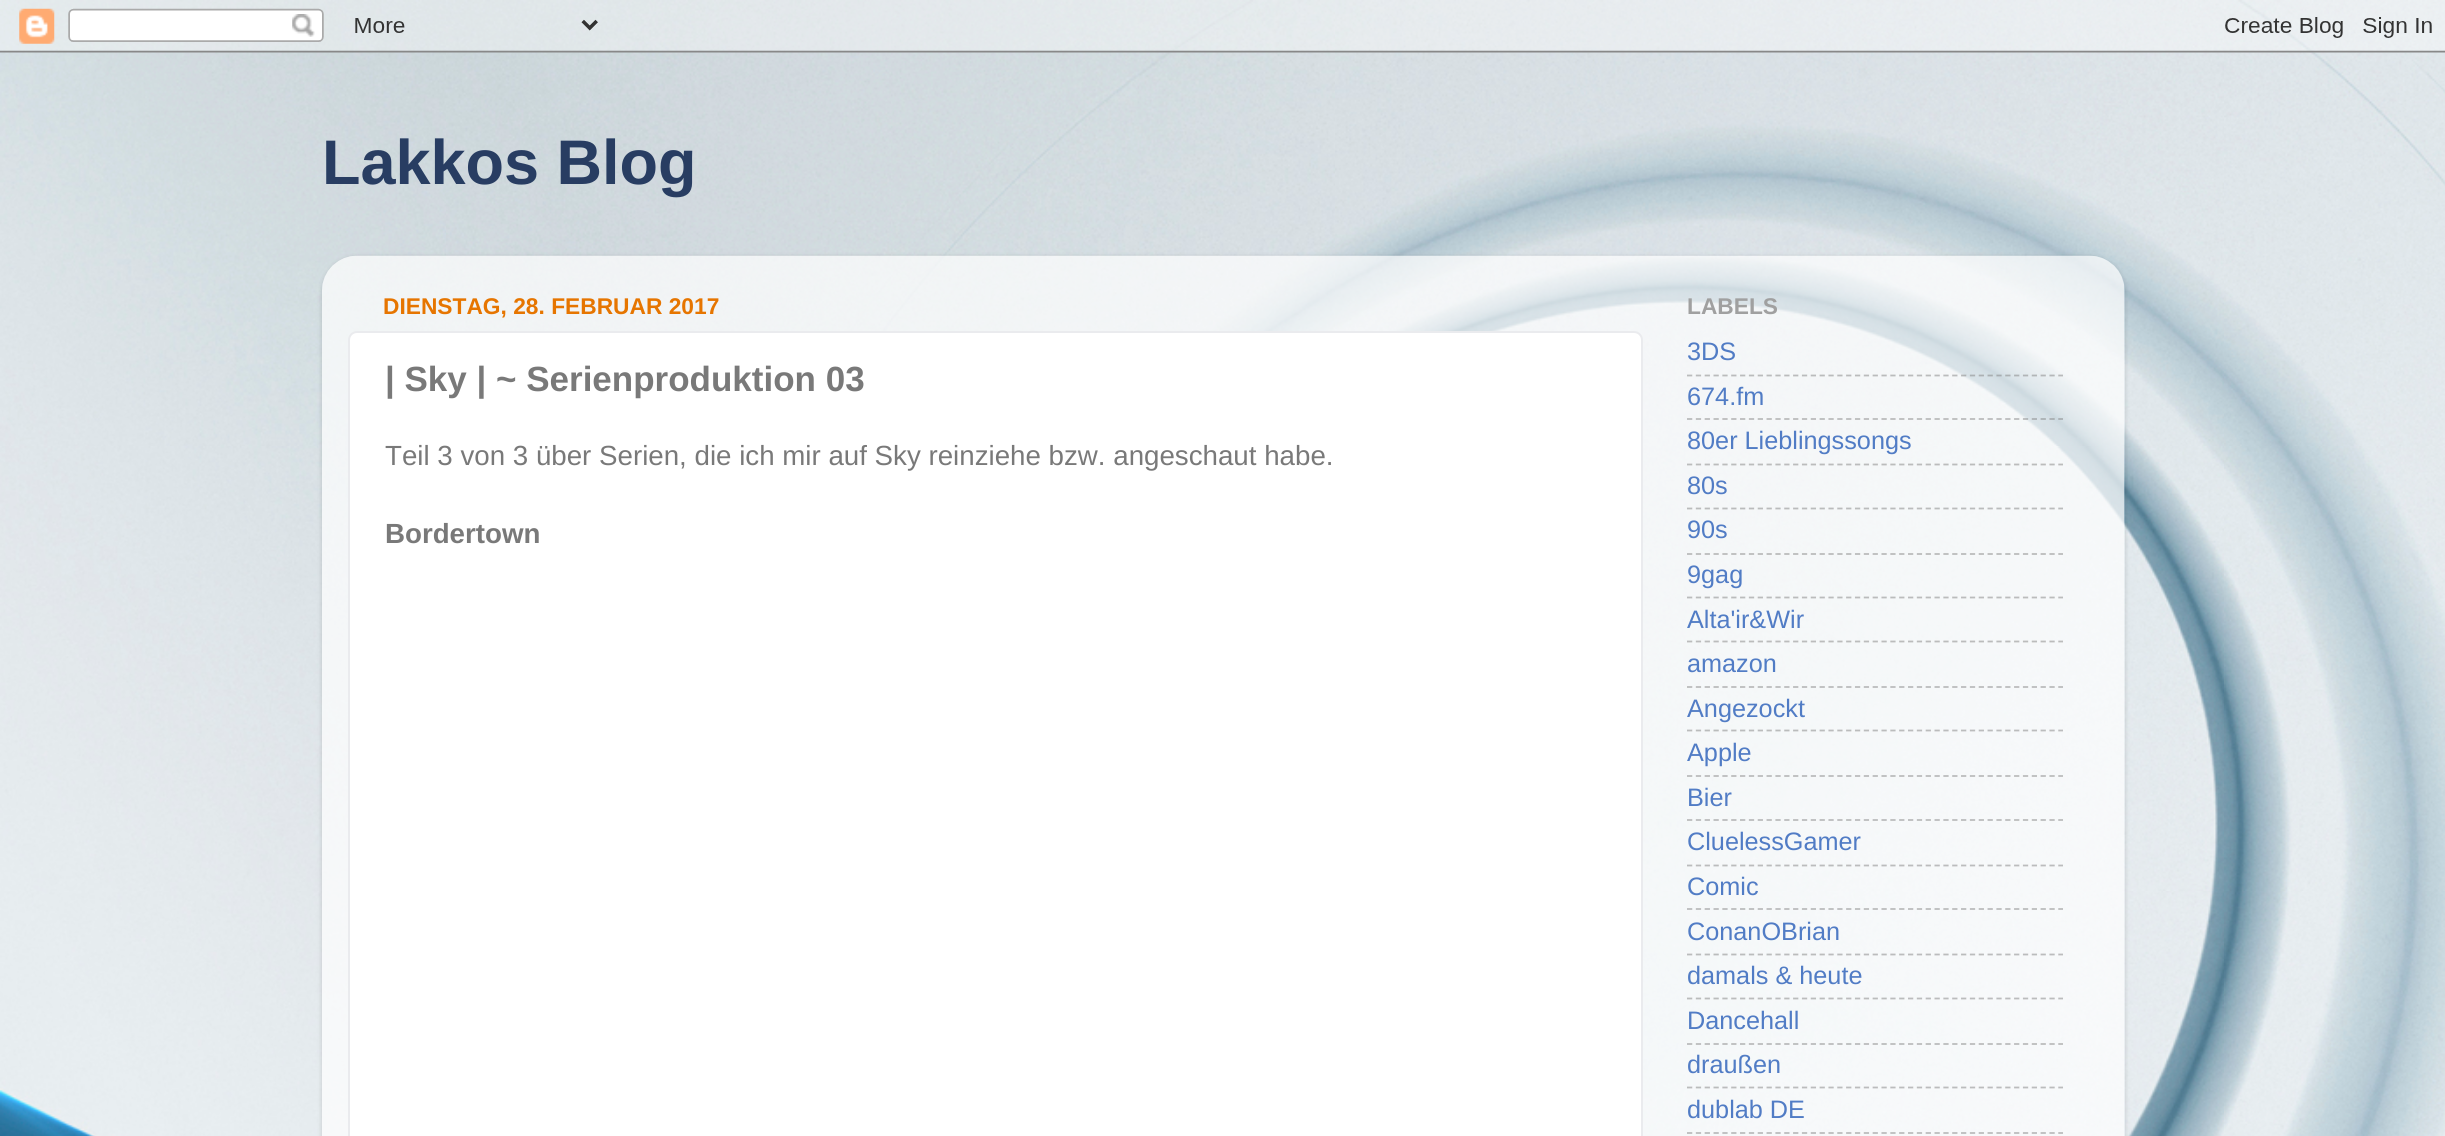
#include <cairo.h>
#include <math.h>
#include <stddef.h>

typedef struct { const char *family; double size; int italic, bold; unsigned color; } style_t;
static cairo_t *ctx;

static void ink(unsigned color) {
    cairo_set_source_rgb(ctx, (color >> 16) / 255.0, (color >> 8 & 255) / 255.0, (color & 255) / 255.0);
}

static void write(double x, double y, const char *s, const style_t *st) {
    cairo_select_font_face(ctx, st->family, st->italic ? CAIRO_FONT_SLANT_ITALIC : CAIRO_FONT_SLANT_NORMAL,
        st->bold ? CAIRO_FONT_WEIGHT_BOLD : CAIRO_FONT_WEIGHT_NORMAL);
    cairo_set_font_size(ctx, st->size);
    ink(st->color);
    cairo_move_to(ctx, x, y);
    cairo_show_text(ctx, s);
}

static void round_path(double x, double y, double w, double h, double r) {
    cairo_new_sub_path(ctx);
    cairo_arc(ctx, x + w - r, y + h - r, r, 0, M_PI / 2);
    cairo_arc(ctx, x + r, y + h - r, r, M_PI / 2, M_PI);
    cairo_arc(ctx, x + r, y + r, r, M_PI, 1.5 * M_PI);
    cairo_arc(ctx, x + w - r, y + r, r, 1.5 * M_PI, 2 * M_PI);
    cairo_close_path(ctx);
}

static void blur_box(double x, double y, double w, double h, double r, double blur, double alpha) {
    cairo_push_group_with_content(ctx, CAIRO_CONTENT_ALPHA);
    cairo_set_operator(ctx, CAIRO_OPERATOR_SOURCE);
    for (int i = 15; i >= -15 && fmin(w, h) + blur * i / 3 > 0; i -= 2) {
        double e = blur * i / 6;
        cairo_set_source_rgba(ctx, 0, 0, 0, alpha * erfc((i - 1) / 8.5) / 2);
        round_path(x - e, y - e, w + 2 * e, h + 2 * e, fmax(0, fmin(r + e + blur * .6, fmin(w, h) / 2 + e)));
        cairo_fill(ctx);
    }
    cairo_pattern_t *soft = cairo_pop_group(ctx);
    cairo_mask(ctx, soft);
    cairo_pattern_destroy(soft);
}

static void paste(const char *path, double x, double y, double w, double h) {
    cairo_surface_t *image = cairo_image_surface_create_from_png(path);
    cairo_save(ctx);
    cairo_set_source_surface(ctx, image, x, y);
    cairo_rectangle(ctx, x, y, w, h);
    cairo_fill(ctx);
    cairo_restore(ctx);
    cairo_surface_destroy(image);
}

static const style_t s1 = {"Liberation Sans", 63, 0, 1, 0x283d62};
static const style_t s2 = {"Liberation Sans", 22.75, 0, 1, 0xe67500};
static const style_t s3 = {"Liberation Sans", 35, 0, 1, 0x797979};
static const style_t s4 = {"Liberation Sans", 27.7, 0, 0, 0x797979};
static const style_t s5 = {"Liberation Sans", 27.7, 0, 1, 0x797979};
static const style_t s6 = {"Liberation Sans", 22.75, 0, 1, 0xa0a0a0};
static const style_t s7 = {"Liberation Sans", 25.25, 0, 0, 0x517cc5};

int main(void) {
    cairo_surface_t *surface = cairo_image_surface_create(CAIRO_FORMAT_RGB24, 2445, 1136);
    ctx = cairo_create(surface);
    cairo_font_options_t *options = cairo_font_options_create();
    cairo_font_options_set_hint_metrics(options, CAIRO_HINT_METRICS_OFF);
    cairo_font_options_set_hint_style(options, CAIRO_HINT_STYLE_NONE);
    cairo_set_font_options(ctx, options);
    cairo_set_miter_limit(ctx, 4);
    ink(0xffffff);
    cairo_paint(ctx);
    paste("pic1.png", 0, 0, 2445, 1136);
    paste("pic2.png", 0, 0, 2445, 53);
    write(322, 184, "Lakkos Blog", &s1);
    cairo_save(ctx);
    cairo_set_fill_rule(ctx, CAIRO_FILL_RULE_EVEN_ODD);
    cairo_new_path(ctx);
    cairo_move_to(ctx, 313, 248);
    cairo_line_to(ctx, 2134, 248);
    cairo_line_to(ctx, 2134, 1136);
    cairo_line_to(ctx, 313, 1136);
    cairo_close_path(ctx);
    cairo_move_to(ctx, 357, 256);
    cairo_line_to(ctx, 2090, 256);
    cairo_curve_to(ctx, 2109.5, 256, 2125, 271.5, 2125, 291);
    cairo_line_to(ctx, 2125, 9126);
    cairo_line_to(ctx, 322, 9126);
    cairo_line_to(ctx, 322, 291);
    cairo_curve_to(ctx, 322, 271.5, 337.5, 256, 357, 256);
    cairo_close_path(ctx);
    cairo_clip(ctx);
    ink(0x000000);
    blur_box(322, 257, 1803, 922, 35, 2.5, 0.15);
    cairo_restore(ctx);
    paste("pic3.png", 322, 255, 1803, 881);
    write(383, 314, "DIENSTAG, 28. FEBRUAR 2017", &s2);
    ink(0xffffff);
    round_path(349, 332, 1293, 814, 8);
    cairo_fill_preserve(ctx);
    ink(0xeaebee);
    cairo_stroke(ctx);
    write(385, 391, "| Sky | ~ Serienproduktion 03", &s3);
    write(385, 465, "Teil 3 von 3 über Serien, die ich mir auf Sky reinziehe bzw. angeschaut habe.", &s4);
    write(385, 543, "Bordertown", &s5);
    write(1687, 314, "LABELS", &s6);
    write(1687, 360, "3DS", &s7);
    cairo_new_path(ctx);
    cairo_move_to(ctx, 1687, 375.5);
    cairo_line_to(ctx, 2063, 375.5);
    cairo_set_source_rgba(ctx, 0.502, 0.502, 0.502, 0.5);
    cairo_set_line_width(ctx, 1.8);
    cairo_set_dash(ctx, (double[]){5.25, 3.59}, 2, 0);
    cairo_stroke(ctx);
    write(1687, 405, "674.fm", &s7);
    cairo_new_path(ctx);
    cairo_move_to(ctx, 1687, 419);
    cairo_line_to(ctx, 2063, 419);
    cairo_set_source_rgba(ctx, 0.502, 0.502, 0.502, 0.5);
    cairo_stroke(ctx);
    write(1687, 449, "80er Lieblingssongs", &s7);
    cairo_new_path(ctx);
    cairo_move_to(ctx, 1687, 464.5);
    cairo_line_to(ctx, 2063, 464.5);
    ink(0xbbbcbc);
    cairo_stroke(ctx);
    write(1687, 494, "80s", &s7);
    cairo_new_path(ctx);
    cairo_move_to(ctx, 1687, 508.5);
    cairo_line_to(ctx, 2063, 508.5);
    cairo_set_source_rgba(ctx, 0.502, 0.502, 0.502, 0.5);
    cairo_stroke(ctx);
    write(1687, 538, "90s", &s7);
    cairo_new_path(ctx);
    cairo_move_to(ctx, 1687, 554);
    cairo_line_to(ctx, 2063, 554);
    ink(0xbbbcbc);
    cairo_stroke(ctx);
    write(1687, 583, "9gag", &s7);
    cairo_new_path(ctx);
    cairo_move_to(ctx, 1687, 597.5);
    cairo_line_to(ctx, 2063, 597.5);
    cairo_set_source_rgba(ctx, 0.502, 0.502, 0.502, 0.5);
    cairo_stroke(ctx);
    write(1687, 628, "Alta'ir&Wir", &s7);
    cairo_new_path(ctx);
    cairo_move_to(ctx, 1687, 641.5);
    cairo_line_to(ctx, 2063, 641.5);
    ink(0xbbbcbc);
    cairo_stroke(ctx);
    write(1687, 672, "amazon", &s7);
    cairo_new_path(ctx);
    cairo_move_to(ctx, 1687, 687);
    cairo_line_to(ctx, 2063, 687);
    cairo_set_source_rgba(ctx, 0.502, 0.502, 0.502, 0.5);
    cairo_stroke(ctx);
    write(1687, 717, "Angezockt", &s7);
    cairo_new_path(ctx);
    cairo_move_to(ctx, 1687, 730.5);
    cairo_line_to(ctx, 2063, 730.5);
    cairo_set_source_rgba(ctx, 0.502, 0.502, 0.502, 0.5);
    cairo_stroke(ctx);
    write(1687, 761, "Apple", &s7);
    cairo_new_path(ctx);
    cairo_move_to(ctx, 1687, 776);
    cairo_line_to(ctx, 2063, 776);
    cairo_set_source_rgba(ctx, 0.502, 0.502, 0.502, 0.5);
    cairo_stroke(ctx);
    write(1687, 806, "Bier", &s7);
    cairo_new_path(ctx);
    cairo_move_to(ctx, 1687, 820);
    cairo_line_to(ctx, 2063, 820);
    cairo_set_source_rgba(ctx, 0.502, 0.502, 0.502, 0.5);
    cairo_stroke(ctx);
    write(1687, 850, "CluelessGamer", &s7);
    cairo_new_path(ctx);
    cairo_move_to(ctx, 1687, 865.5);
    cairo_line_to(ctx, 2063, 865.5);
    cairo_set_source_rgba(ctx, 0.502, 0.502, 0.502, 0.5);
    cairo_stroke(ctx);
    write(1687, 895, "Comic", &s7);
    cairo_new_path(ctx);
    cairo_move_to(ctx, 1687, 909);
    cairo_line_to(ctx, 2063, 909);
    cairo_set_source_rgba(ctx, 0.502, 0.502, 0.502, 0.5);
    cairo_stroke(ctx);
    write(1687, 940, "ConanOBrian", &s7);
    cairo_new_path(ctx);
    cairo_move_to(ctx, 1687, 954.5);
    cairo_line_to(ctx, 2063, 954.5);
    cairo_set_source_rgba(ctx, 0.502, 0.502, 0.502, 0.5);
    cairo_stroke(ctx);
    write(1687, 984, "damals & heute", &s7);
    cairo_new_path(ctx);
    cairo_move_to(ctx, 1687, 998.5);
    cairo_line_to(ctx, 2063, 998.5);
    cairo_set_source_rgba(ctx, 0.502, 0.502, 0.502, 0.5);
    cairo_stroke(ctx);
    write(1687, 1029, "Dancehall", &s7);
    cairo_new_path(ctx);
    cairo_move_to(ctx, 1687, 1044);
    cairo_line_to(ctx, 2063, 1044);
    cairo_set_source_rgba(ctx, 0.502, 0.502, 0.502, 0.5);
    cairo_stroke(ctx);
    write(1687, 1073, "draußen", &s7);
    cairo_new_path(ctx);
    cairo_move_to(ctx, 1687, 1087.5);
    cairo_line_to(ctx, 2063, 1087.5);
    cairo_set_source_rgba(ctx, 0.502, 0.502, 0.502, 0.5);
    cairo_stroke(ctx);
    write(1687, 1118, "dublab DE", &s7);
    cairo_new_path(ctx);
    cairo_move_to(ctx, 1687, 1133);
    cairo_line_to(ctx, 2063, 1133);
    cairo_set_source_rgba(ctx, 0.502, 0.502, 0.502, 0.5);
    cairo_stroke(ctx);
    cairo_surface_write_to_png(surface, "screenshot.png");
    cairo_font_options_destroy(options);
    cairo_destroy(ctx);
    cairo_surface_destroy(surface);
    return 0;
}
